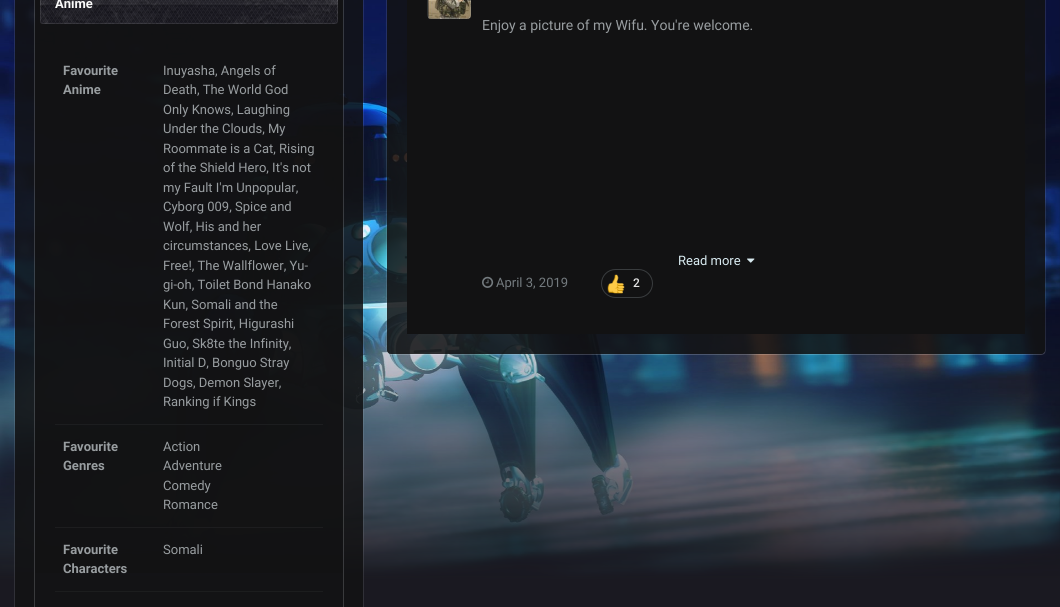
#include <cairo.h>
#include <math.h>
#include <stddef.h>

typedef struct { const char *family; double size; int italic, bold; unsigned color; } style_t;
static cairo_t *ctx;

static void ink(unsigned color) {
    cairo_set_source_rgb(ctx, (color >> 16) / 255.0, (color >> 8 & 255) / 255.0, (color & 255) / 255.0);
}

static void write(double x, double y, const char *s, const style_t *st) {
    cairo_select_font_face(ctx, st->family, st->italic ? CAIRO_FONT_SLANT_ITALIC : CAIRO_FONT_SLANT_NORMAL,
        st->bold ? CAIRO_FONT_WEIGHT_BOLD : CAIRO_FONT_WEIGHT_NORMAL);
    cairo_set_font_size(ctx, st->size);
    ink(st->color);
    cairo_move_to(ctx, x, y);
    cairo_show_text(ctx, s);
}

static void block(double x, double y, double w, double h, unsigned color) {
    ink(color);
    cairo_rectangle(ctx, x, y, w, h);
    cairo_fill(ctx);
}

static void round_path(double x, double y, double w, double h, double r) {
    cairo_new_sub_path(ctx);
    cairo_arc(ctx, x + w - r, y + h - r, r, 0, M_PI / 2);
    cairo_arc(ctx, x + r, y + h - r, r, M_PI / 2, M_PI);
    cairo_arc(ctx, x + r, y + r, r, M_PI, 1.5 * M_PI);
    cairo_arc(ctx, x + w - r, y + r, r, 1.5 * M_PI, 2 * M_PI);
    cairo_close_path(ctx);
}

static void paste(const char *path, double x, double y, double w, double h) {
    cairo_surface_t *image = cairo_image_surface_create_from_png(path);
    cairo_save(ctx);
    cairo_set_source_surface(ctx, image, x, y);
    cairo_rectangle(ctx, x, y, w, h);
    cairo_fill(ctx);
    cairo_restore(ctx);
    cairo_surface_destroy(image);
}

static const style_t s1 = {"Roboto", 13, 0, 1, 0xfafafa};
static const style_t s2 = {"Roboto", 13, 0, 1, 0x989da0};
static const style_t s3 = {"Roboto", 13, 0, 0, 0x989da0};
static const style_t s4 = {"Roboto", 14, 0, 0, 0x989da0};
static const style_t s5 = {"Roboto", 13, 0, 0, 0xd8eaf0};
static const style_t s6 = {"Roboto", 13, 0, 0, 0x747b7f};
static const style_t s7 = {"Roboto Medium", 12, 0, 0, 0xe3e3e3};

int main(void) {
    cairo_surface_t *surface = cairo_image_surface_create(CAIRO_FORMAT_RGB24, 1060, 607);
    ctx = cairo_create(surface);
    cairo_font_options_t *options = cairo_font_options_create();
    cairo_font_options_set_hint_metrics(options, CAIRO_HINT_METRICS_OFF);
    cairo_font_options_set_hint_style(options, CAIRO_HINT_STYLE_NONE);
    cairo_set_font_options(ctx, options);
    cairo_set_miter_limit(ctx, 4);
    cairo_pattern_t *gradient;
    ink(0x1a1921);
    cairo_paint(ctx);
    paste("pic1.png", 0, 0, 1060, 579);
    gradient = cairo_pattern_create_linear(530, 298, 530, 596);
    cairo_pattern_add_color_stop_rgba(gradient, 0, 0.102, 0.098, 0.129, 0);
    cairo_pattern_add_color_stop_rgba(gradient, 0.95, 0.102, 0.098, 0.129, 1);
    cairo_set_source(ctx, gradient);
    cairo_pattern_destroy(gradient);
    cairo_rectangle(ctx, 0, 304, 1060, 275);
    cairo_fill(ctx);
    cairo_rectangle(ctx, 14.5, -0.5, 349, 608);
    cairo_set_source_rgba(ctx, 1, 1, 1, 0.1);
    cairo_set_line_width(ctx, 1);
    cairo_stroke(ctx);
    cairo_set_source_rgba(ctx, 0.071, 0.071, 0.075, 0.85);
    cairo_rectangle(ctx, 15, 0, 348, 607);
    cairo_fill(ctx);
    cairo_rectangle(ctx, 34.5, -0.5, 309, 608);
    cairo_set_source_rgba(ctx, 1, 1, 1, 0.1);
    cairo_stroke(ctx);
    cairo_rectangle(ctx, 34.5, -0.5, 309, 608);
    cairo_set_source_rgba(ctx, 0.455, 0.482, 0.498, 0.2);
    cairo_stroke(ctx);
    cairo_set_source_rgba(ctx, 0.071, 0.071, 0.075, 0.85);
    cairo_rectangle(ctx, 35, 0, 308, 573);
    cairo_fill(ctx);
    ink(0x1a1921);
    round_path(40, -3, 298, 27, 3);
    cairo_fill(ctx);
    paste("pic2.png", 40, 0, 298, 24);
    round_path(40.5, -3.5, 297, 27, 2.5);
    cairo_set_source_rgba(ctx, 1, 1, 1, 0.1);
    cairo_stroke(ctx);
    write(55, 8, "Anime", &s1);
    block(55, 424, 268, 1, 0x1c1d1f);
    write(63, 75, "Favourite", &s2);
    write(63, 94, "Anime", &s2);
    write(163, 75, "Inuyasha, Angels of", &s3);
    write(163, 94, "Death, The World God", &s3);
    write(163, 114, "Only Knows, Laughing", &s3);
    write(163, 133, "Under the Clouds, My", &s3);
    write(163, 153, "Roommate is a Cat, Rising", &s3);
    write(163, 172, "of the Shield Hero, It's not", &s3);
    write(163, 192, "my Fault I'm Unpopular,", &s3);
    write(163, 211, "Cyborg 009, Spice and", &s3);
    write(163, 231, "Wolf, His and her", &s3);
    write(163, 250, "circumstances, Love Live,", &s3);
    write(163, 270, "Free!, The Wallflower, Yu-", &s3);
    write(163, 289, "gi-oh, Toilet Bond Hanako", &s3);
    write(163, 309, "Kun, Somali and the", &s3);
    write(163, 328, "Forest Spirit, Higurashi", &s3);
    write(163, 348, "Guo, Sk8te the Infinity,", &s3);
    write(163, 367, "Initial D, Bonguo Stray", &s3);
    write(163, 387, "Dogs, Demon Slayer,", &s3);
    write(163, 406, "Ranking if Kings", &s3);
    block(55, 527, 268, 1, 0x1d1d1f);
    write(63, 451, "Favourite", &s2);
    write(63, 470, "Genres", &s2);
    write(163, 451, "Action", &s3);
    write(163, 470, "Adventure", &s3);
    write(163, 490, "Comedy", &s3);
    write(163, 509, "Romance", &s3);
    block(55, 591, 268, 1, 0x1c1d1e);
    write(63, 554, "Favourite", &s2);
    write(63, 573, "Characters", &s2);
    write(163, 554, "Somali", &s3);
    cairo_set_source_rgba(ctx, 1, 1, 1, 0.1);
    cairo_new_path(ctx);
    cairo_move_to(ctx, 387, 350);
    cairo_curve_to(ctx, 387, 353, 388, 355, 391, 355);
    cairo_line_to(ctx, 1041, 355);
    cairo_line_to(ctx, 1044, 354);
    cairo_line_to(ctx, 1045, 353);
    cairo_line_to(ctx, 1045, 350);
    cairo_curve_to(ctx, 1045, 352, 1043, 354, 1041, 354);
    cairo_line_to(ctx, 391, 354);
    cairo_curve_to(ctx, 389, 354, 387, 352, 387, 350);
    cairo_close_path(ctx);
    cairo_fill(ctx);
    round_path(386.5, -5.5, 659, 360, 4.5);
    cairo_stroke(ctx);
    cairo_set_source_rgba(ctx, 0.071, 0.071, 0.075, 0.85);
    round_path(387, -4, 658, 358, 4);
    cairo_fill(ctx);
    block(407, 0, 618, 334, 0x121213);
    paste("pic3.png", 427, 0, 44, 19);
    round_path(427.5, -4.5, 43, 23, 3.5);
    cairo_set_source_rgba(ctx, 0.596, 0.616, 0.627, 0.3);
    cairo_stroke(ctx);
    write(482, 30, "Enjoy a picture of my Wifu. You're welcome.", &s4);
    write(678, 265, "Read more", &s5);
    paste("pic4.png", 747, 258, 8, 5);
    paste("pic5.png", 482, 276, 12, 12);
    write(496, 287, "April 3, 2019", &s6);
    round_path(601.5, 269.5, 51, 28, 14);
    ink(0x393c3e);
    cairo_stroke(ctx);
    paste("pic6.png", 607, 274, 18, 20);
    write(633, 287, "2", &s7);
    cairo_surface_write_to_png(surface, "screenshot.png");
    cairo_font_options_destroy(options);
    cairo_destroy(ctx);
    cairo_surface_destroy(surface);
    return 0;
}
